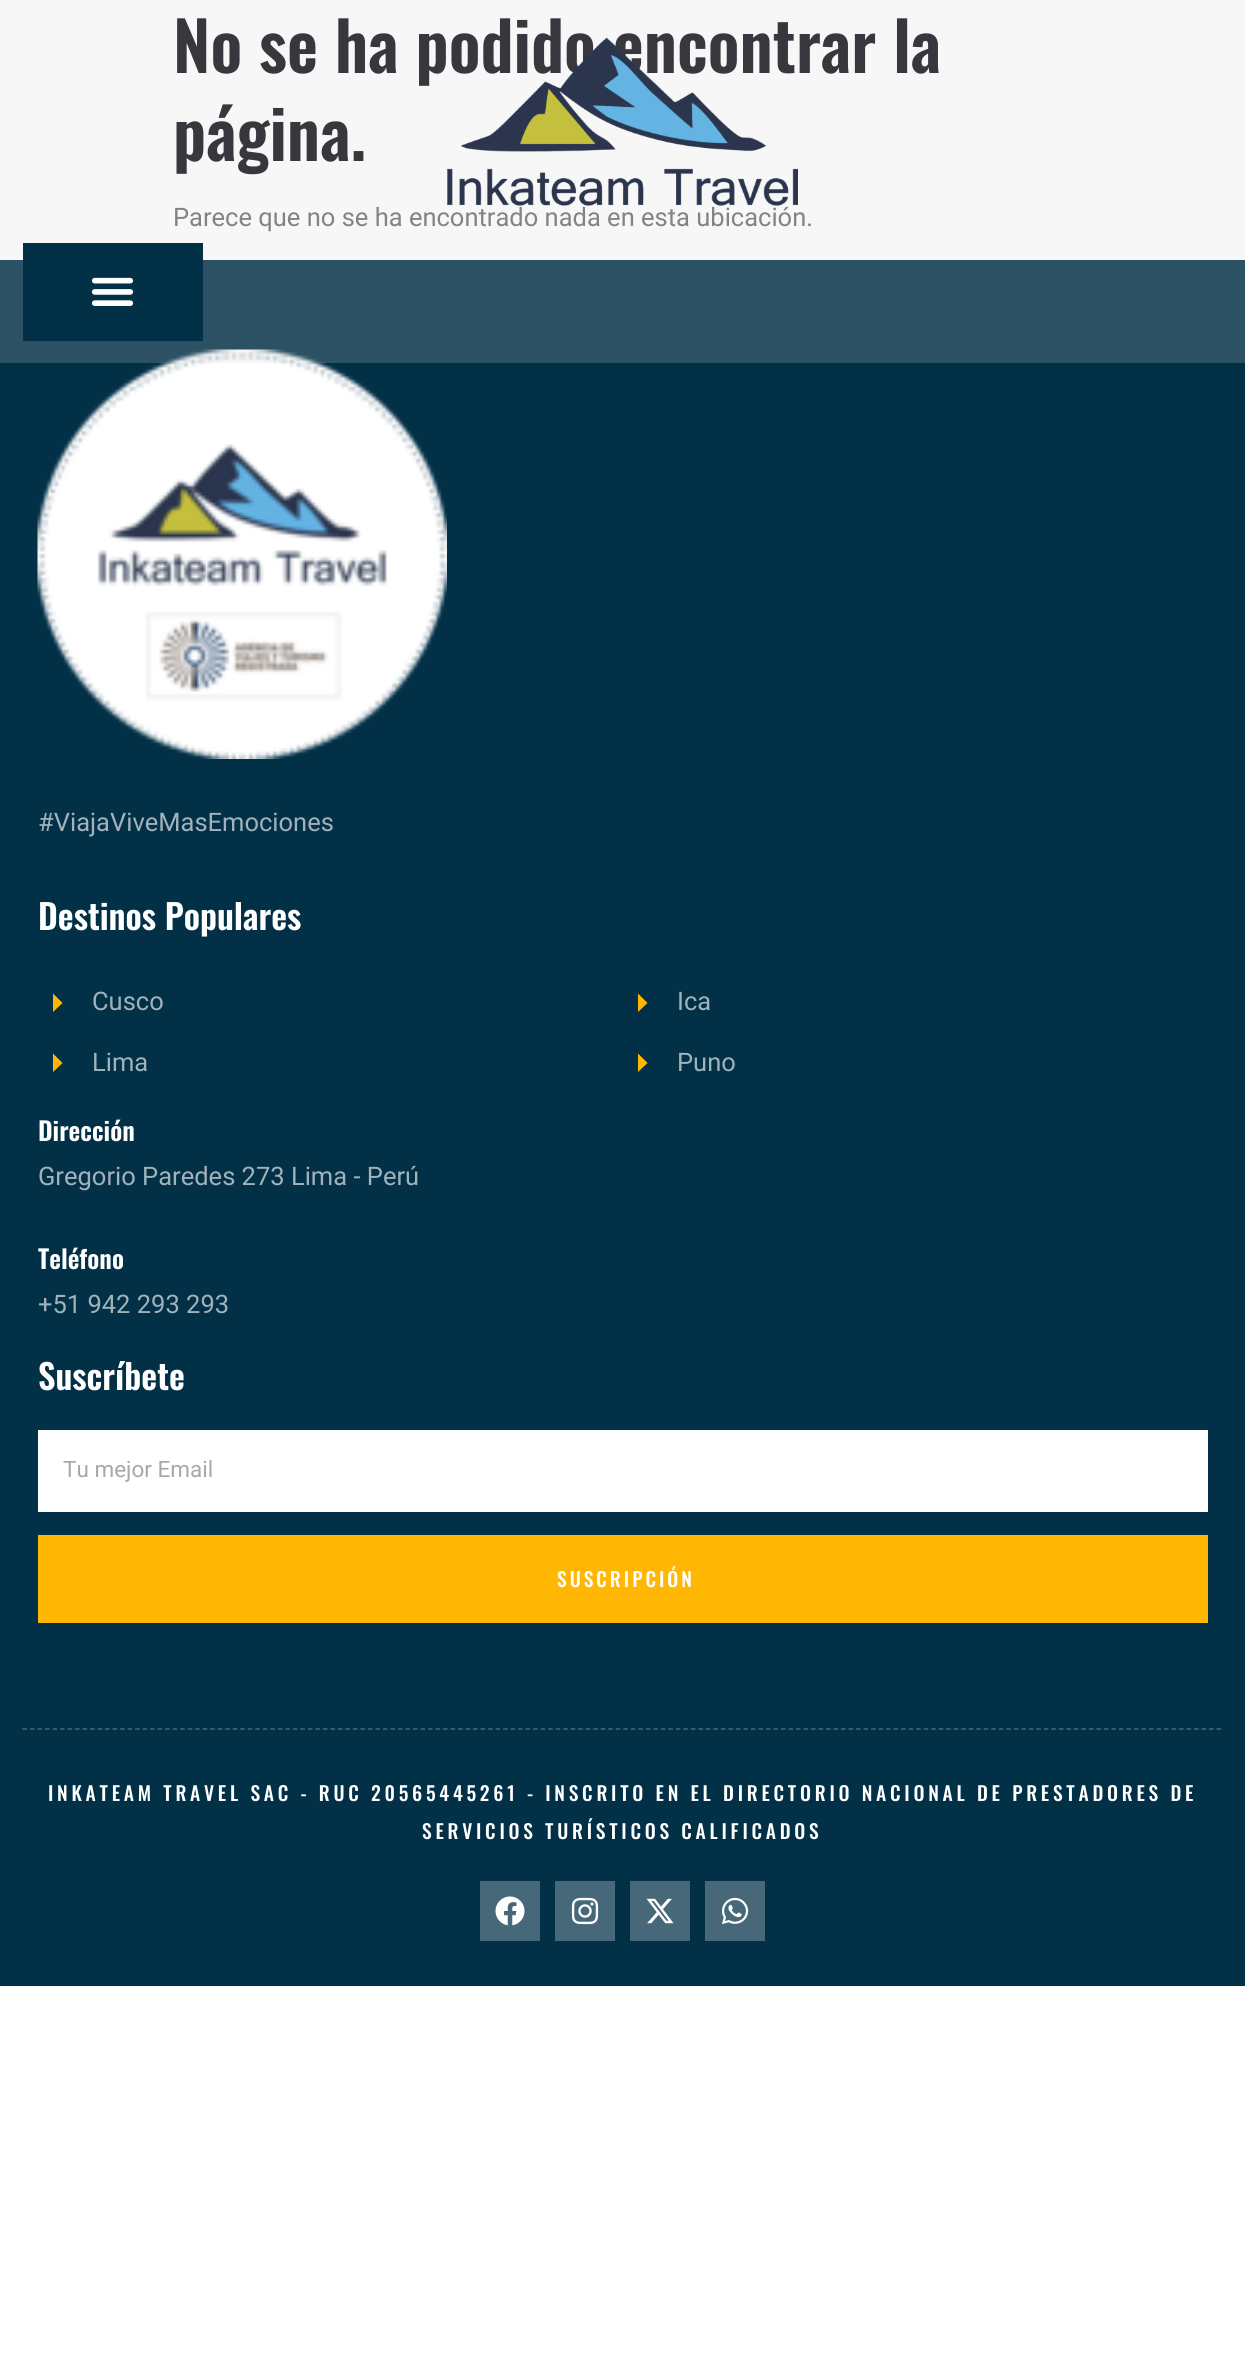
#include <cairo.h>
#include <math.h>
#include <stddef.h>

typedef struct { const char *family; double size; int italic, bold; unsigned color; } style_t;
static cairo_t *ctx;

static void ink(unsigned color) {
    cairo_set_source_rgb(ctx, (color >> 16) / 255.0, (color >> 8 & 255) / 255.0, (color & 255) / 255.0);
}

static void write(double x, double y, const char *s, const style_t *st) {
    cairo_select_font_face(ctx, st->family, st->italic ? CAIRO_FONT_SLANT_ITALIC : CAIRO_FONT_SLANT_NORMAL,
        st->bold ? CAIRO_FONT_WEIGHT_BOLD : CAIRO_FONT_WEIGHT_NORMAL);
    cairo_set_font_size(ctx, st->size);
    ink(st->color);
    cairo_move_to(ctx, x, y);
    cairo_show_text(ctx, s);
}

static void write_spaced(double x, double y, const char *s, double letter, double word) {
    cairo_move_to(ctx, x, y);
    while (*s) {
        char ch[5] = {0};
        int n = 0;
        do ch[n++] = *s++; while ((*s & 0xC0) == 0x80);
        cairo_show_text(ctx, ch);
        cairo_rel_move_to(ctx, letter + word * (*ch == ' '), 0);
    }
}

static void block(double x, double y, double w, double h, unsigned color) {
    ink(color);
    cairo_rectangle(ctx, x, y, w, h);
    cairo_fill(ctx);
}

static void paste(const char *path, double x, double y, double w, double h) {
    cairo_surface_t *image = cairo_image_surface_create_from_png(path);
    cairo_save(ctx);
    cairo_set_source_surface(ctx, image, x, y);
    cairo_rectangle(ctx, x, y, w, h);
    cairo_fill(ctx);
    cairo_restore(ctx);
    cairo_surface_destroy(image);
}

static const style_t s1 = {"Oswald SemiBold", 67.5, 0, 0, 0x0f0f17};
static const style_t s2 = {"Roboto", 25.5, 0, 0, 0x6e6e6e};
static const style_t s3 = {"Roboto", 25.5, 0, 0, 0xa1b2bb};
static const style_t s4 = {"Oswald SemiBold", 34.5, 0, 0, 0xffffff};
static const style_t s5 = {"Oswald SemiBold", 25.5, 0, 0, 0xffffff};
static const style_t s6 = {"Roboto", 22.5, 0, 0, 0xa8a8a8};

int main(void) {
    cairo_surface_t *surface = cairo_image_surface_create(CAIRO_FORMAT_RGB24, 1245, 2358);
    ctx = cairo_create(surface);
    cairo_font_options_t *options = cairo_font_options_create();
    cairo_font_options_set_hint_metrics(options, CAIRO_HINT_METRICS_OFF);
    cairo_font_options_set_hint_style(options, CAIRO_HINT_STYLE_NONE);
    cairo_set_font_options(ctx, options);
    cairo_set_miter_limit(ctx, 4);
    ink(0xffffff);
    cairo_paint(ctx);
    write(173, 73, "No se ha podido encontrar la", &s1);
    write(173, 161, "página.", &s1);
    write(173, 226, "Parece que no se ha encontrado nada en esta ubicación.", &s2);
    block(0, 260, 1245, 1726, 0x023047);
    paste("pic3.png", 37, 349, 410, 410);
    cairo_set_source_rgba(ctx, 0.855, 0.855, 0.855, 0.2);
    cairo_rectangle(ctx, 0, 0, 1245, 363);
    cairo_fill(ctx);
    paste("pic1.png", 447, 37, 351, 169);
    block(23, 243, 180, 98, 0x023047);
    paste("pic2.png", 91, 277, 43, 29);
    write(38, 831, "#ViajaViveMasEmociones", &s3);
    write(38, 930, "Destinos Populares", &s4);
    ink(0xffb703);
    cairo_new_path(ctx);
    cairo_move_to(ctx, 62.5, 1003);
    cairo_line_to(ctx, 53, 1012);
    cairo_line_to(ctx, 53, 993.5);
    cairo_close_path(ctx);
    cairo_fill(ctx);
    write(92, 1010, "Cusco", &s3);
    ink(0xffb703);
    cairo_new_path(ctx);
    cairo_move_to(ctx, 62.5, 1063);
    cairo_line_to(ctx, 53, 1072);
    cairo_line_to(ctx, 53, 1053.5);
    cairo_close_path(ctx);
    cairo_fill(ctx);
    write(92, 1071, "Lima", &s3);
    ink(0xffb703);
    cairo_new_path(ctx);
    cairo_move_to(ctx, 647.5, 1003);
    cairo_line_to(ctx, 638, 1012);
    cairo_line_to(ctx, 638, 993.5);
    cairo_close_path(ctx);
    cairo_fill(ctx);
    write(677, 1010, "Ica", &s3);
    ink(0xffb703);
    cairo_new_path(ctx);
    cairo_move_to(ctx, 647.5, 1063);
    cairo_line_to(ctx, 638, 1072);
    cairo_line_to(ctx, 638, 1053.5);
    cairo_close_path(ctx);
    cairo_fill(ctx);
    write(677, 1071, "Puno", &s3);
    write(38, 1141, "Dirección", &s5);
    write(38, 1185, "Gregorio Paredes 273 Lima - Perú", &s3);
    write(38, 1269, "Teléfono", &s5);
    write(38, 1313, "+51 942 293 293", &s3);
    write(38, 1390, "Suscríbete", &s4);
    block(38, 1430, 1170, 82, 0xffffff);
    write(63, 1477, "Tu mejor Email", &s6);
    block(38, 1535, 1170, 88, 0xffb703);
    cairo_select_font_face(ctx, "Oswald Medium", CAIRO_FONT_SLANT_NORMAL, CAIRO_FONT_WEIGHT_NORMAL);
    cairo_set_font_size(ctx, 19.5);
    ink(0xffffff);
    write_spaced(557, 1587, "SUSCRIPCIÓN", 3, 0);
    cairo_new_path(ctx);
    cairo_move_to(ctx, 22.5, 1729);
    cairo_line_to(ctx, 1222.5, 1729);
    ink(0x466879);
    cairo_set_line_width(ctx, 1.5);
    cairo_set_dash(ctx, (double[]){4.5, 3.01}, 2, 0);
    cairo_stroke(ctx);
    ink(0xffffff);
    write_spaced(48, 1801, "INKATEAM TRAVEL SAC - RUC 20565445261 - INSCRITO EN EL DIRECTORIO NACIONAL DE PRESTADORES DE", 3.75, 0);
    write_spaced(422, 1839, "SERVICIOS TURÍSTICOS CALIFICADOS", 3.75, 0);
    block(480, 1881, 60, 60, 0x466879);
    paste("pic4.png", 495, 1896, 30, 30);
    block(555, 1881, 60, 60, 0x466879);
    paste("pic5.png", 571, 1897, 28, 28);
    block(630, 1881, 60, 60, 0x466879);
    paste("pic6.png", 646, 1898, 28, 26);
    block(705, 1881, 60, 60, 0x466879);
    paste("pic7.png", 722, 1897, 27, 27);
    cairo_surface_write_to_png(surface, "screenshot.png");
    cairo_font_options_destroy(options);
    cairo_destroy(ctx);
    cairo_surface_destroy(surface);
    return 0;
}
